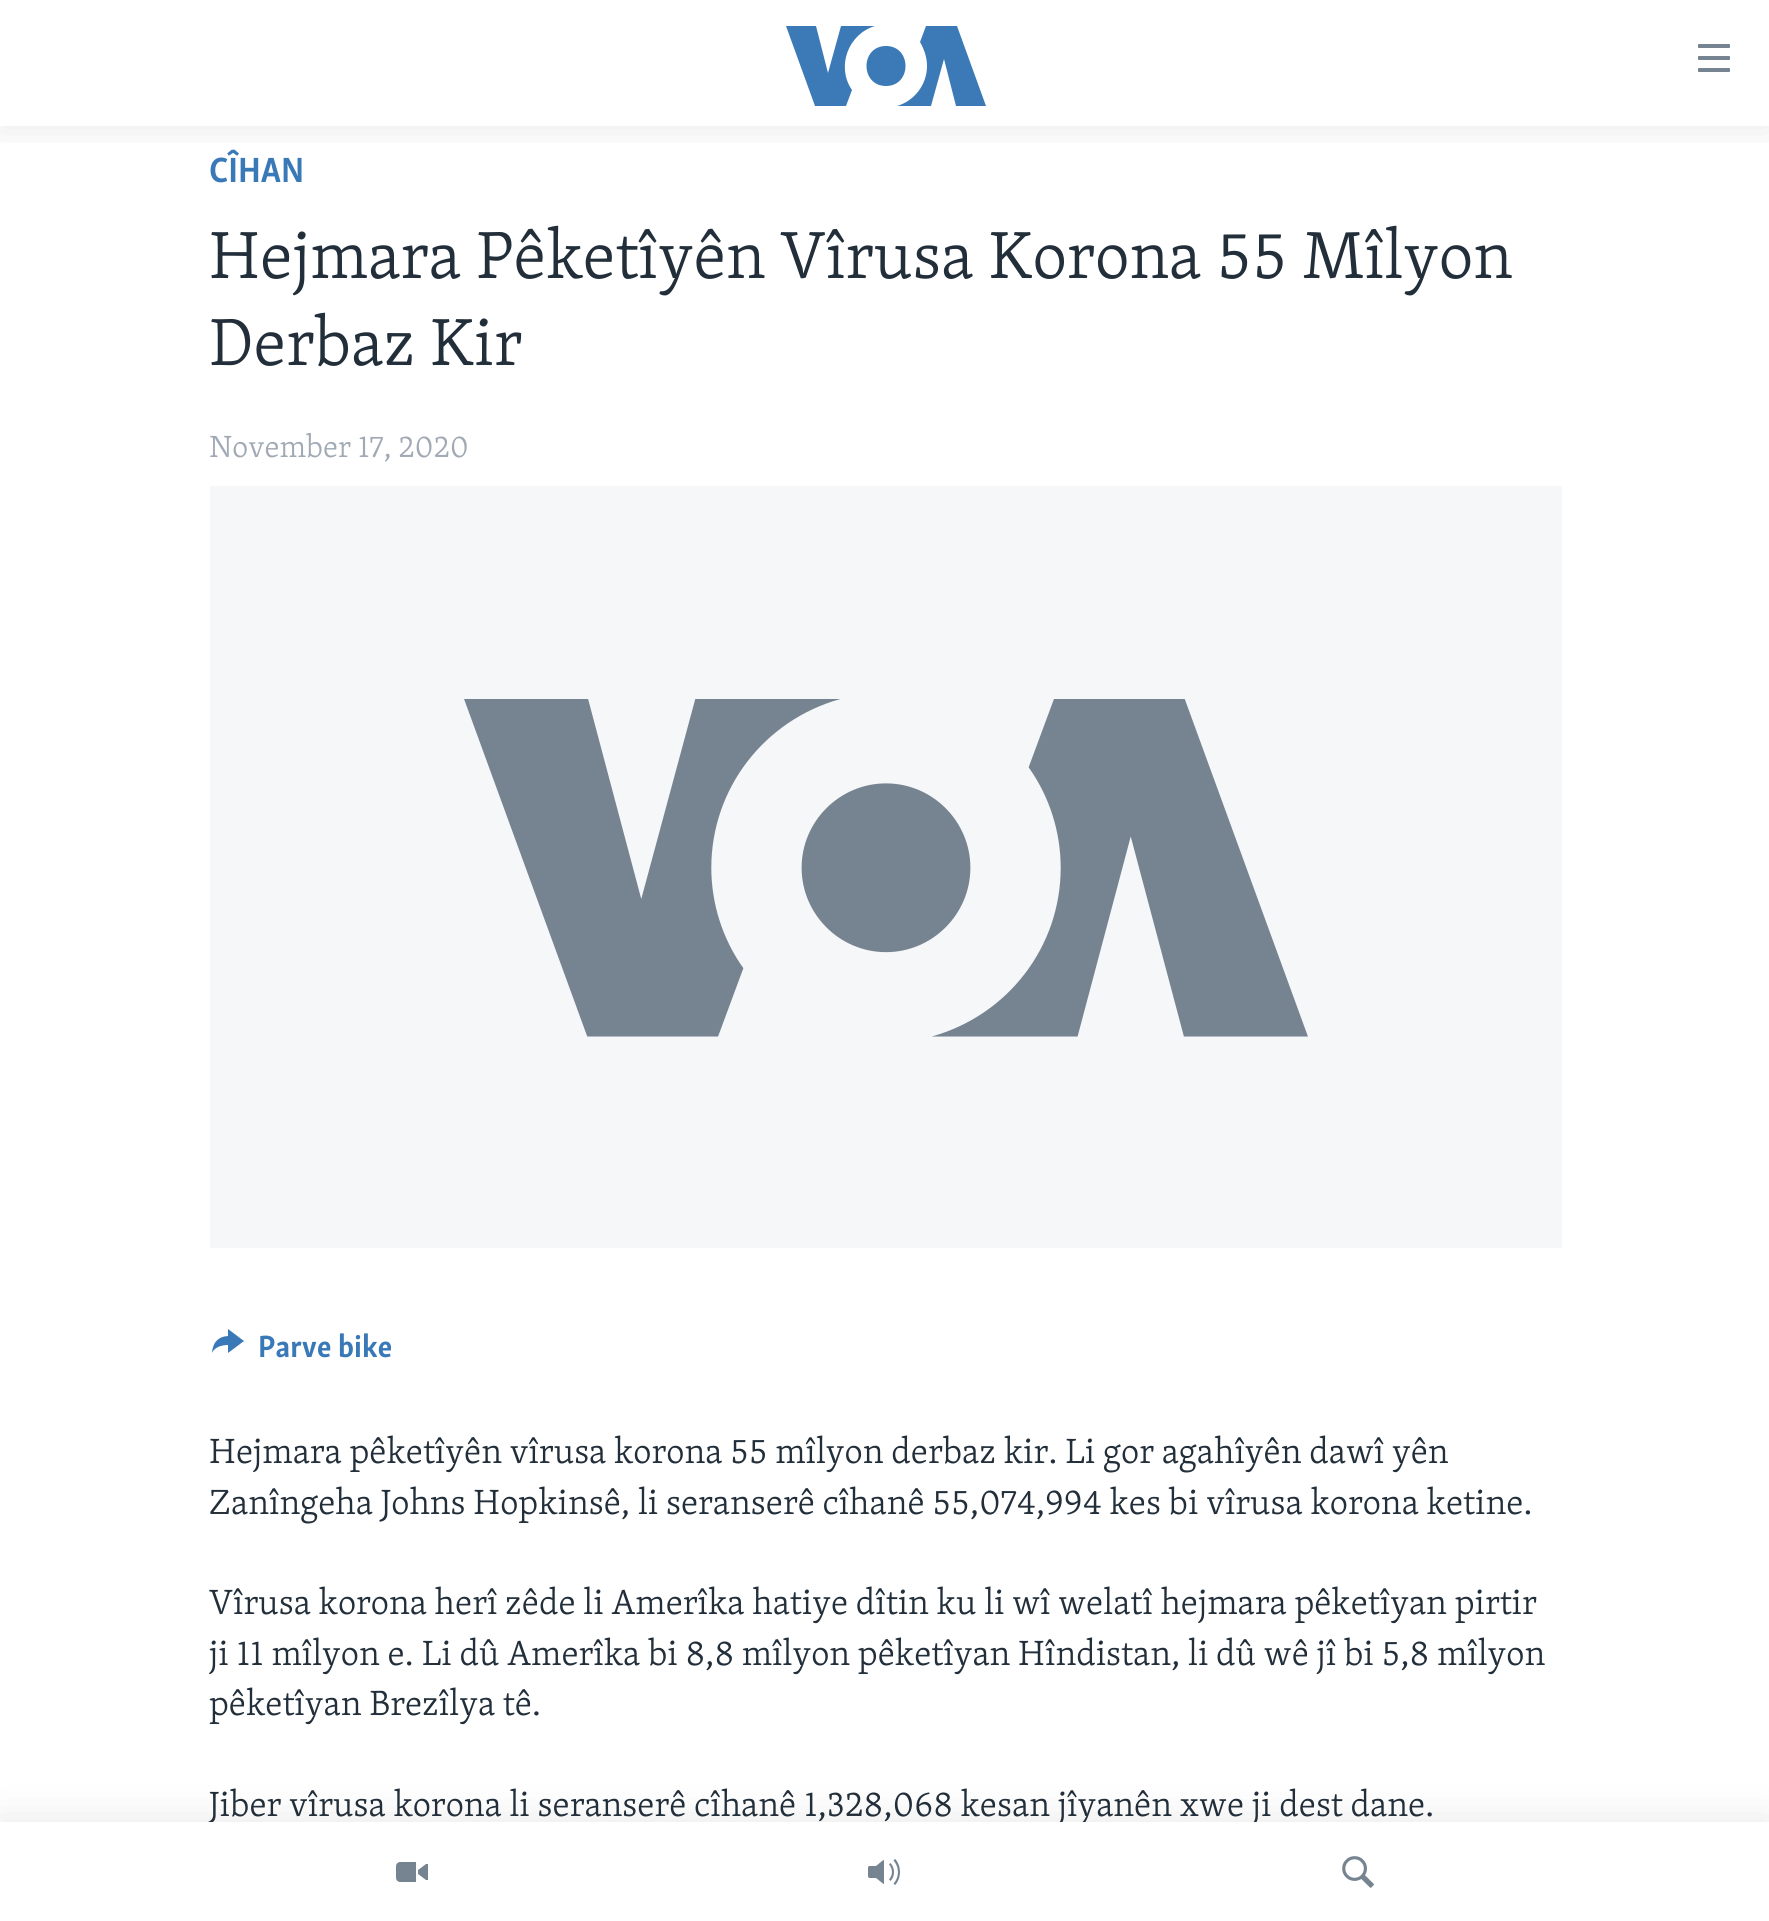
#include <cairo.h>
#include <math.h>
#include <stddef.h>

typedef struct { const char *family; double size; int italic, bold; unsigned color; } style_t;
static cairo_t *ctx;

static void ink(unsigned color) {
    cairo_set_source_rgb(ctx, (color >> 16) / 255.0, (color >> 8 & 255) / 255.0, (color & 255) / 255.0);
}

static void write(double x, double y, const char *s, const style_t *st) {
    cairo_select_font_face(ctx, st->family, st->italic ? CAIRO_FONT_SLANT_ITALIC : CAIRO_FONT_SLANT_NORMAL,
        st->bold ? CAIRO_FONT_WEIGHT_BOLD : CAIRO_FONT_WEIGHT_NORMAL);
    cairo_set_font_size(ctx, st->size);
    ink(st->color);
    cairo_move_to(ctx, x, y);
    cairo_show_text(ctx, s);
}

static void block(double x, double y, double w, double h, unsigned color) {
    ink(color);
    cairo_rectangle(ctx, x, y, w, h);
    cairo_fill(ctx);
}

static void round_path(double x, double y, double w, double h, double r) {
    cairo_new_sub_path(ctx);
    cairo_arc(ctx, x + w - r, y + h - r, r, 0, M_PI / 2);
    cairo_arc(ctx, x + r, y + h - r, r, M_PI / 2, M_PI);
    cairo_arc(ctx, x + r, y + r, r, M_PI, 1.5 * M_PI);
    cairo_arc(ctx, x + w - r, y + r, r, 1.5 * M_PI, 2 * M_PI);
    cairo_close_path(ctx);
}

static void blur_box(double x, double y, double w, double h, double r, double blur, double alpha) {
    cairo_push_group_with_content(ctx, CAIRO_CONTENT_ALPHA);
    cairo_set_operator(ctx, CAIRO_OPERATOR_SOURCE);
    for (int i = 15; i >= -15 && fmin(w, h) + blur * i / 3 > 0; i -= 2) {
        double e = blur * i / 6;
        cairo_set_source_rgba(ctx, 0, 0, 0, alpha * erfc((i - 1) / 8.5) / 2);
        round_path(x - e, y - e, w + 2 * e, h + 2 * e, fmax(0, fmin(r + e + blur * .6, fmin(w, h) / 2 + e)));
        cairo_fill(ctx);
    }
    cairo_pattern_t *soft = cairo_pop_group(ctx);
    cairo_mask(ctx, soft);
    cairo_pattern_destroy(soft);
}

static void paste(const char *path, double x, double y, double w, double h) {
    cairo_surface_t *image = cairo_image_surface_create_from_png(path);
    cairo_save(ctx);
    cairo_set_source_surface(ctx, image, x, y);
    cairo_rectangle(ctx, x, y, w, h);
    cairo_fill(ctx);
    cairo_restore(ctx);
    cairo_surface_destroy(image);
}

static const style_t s1 = {"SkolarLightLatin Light", 36, 0, 0, 0x222f3a};
static const style_t s2 = {"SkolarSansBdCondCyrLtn", 36, 0, 1, 0x3a79b7};
static const style_t s3 = {"SkolarLightLatin Light", 68.4, 0, 0, 0x222f3a};
static const style_t s4 = {"SkolarLightLatin Light", 31.5, 0, 0, 0xa1aab4};
static const style_t s5 = {"SkolarSansBdCondCyrLtn", 31.5, 0, 1, 0x3a79b7};

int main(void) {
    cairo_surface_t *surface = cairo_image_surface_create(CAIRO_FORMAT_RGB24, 1769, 1921);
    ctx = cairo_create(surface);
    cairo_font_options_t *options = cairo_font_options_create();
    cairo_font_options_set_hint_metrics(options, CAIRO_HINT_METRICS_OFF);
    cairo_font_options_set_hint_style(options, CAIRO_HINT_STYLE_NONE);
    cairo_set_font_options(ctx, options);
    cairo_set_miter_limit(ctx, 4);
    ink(0xffffff);
    cairo_paint(ctx);
    cairo_save(ctx);
    cairo_rectangle(ctx, 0, 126, 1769, 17);
    cairo_clip(ctx);
    ink(0x000000);
    blur_box(0, 0, 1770, 126, 0, 20, 0.1);
    cairo_restore(ctx);
    ink(0x3b79b7);
    cairo_new_path(ctx);
    cairo_move_to(ctx, 852, 90);
    cairo_line_to(ctx, 846, 106);
    cairo_line_to(ctx, 815, 106);
    cairo_line_to(ctx, 786, 26);
    cairo_line_to(ctx, 816, 26);
    cairo_line_to(ctx, 828, 73);
    cairo_line_to(ctx, 841, 26);
    cairo_line_to(ctx, 875, 26);
    cairo_curve_to(ctx, 848, 34, 836, 67, 852, 90);
    cairo_close_path(ctx);
    cairo_move_to(ctx, 886, 46);
    cairo_curve_to(ctx, 860, 46, 860, 86, 886, 86);
    cairo_curve_to(ctx, 912, 86, 912, 46, 886, 46);
    cairo_close_path(ctx);
    cairo_move_to(ctx, 927, 66);
    cairo_curve_to(ctx, 927, 85, 914, 101, 897, 106);
    cairo_line_to(ctx, 931, 106);
    cairo_line_to(ctx, 944, 59);
    cairo_line_to(ctx, 956, 106);
    cairo_line_to(ctx, 986, 106);
    cairo_line_to(ctx, 957, 26);
    cairo_line_to(ctx, 926, 26);
    cairo_line_to(ctx, 920, 42);
    cairo_curve_to(ctx, 924, 49, 927, 57, 927, 66);
    cairo_close_path(ctx);
    cairo_fill(ctx);
    paste("pic1.png", 1698, 44, 32, 28);
    ink(0x000000);
    blur_box(0, 1822, 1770, 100, 0, 20, 0.1);
    write(209, 1816, "Jiber vîrusa korona li seranserê cîhanê 1,328,068 kesan jîyanên xwe ji dest dane.", &s1);
    block(0, 1822, 1769, 99, 0xffffff);
    paste("pic2.png", 396, 1862, 32, 20);
    paste("pic3.png", 868, 1859, 32, 26);
    paste("pic4.png", 1342, 1856, 32, 32);
    write(209, 182, "CÎHAN", &s2);
    write(209, 278, "Hejmara Pêketîyên Vîrusa Korona 55 Mîlyon", &s3);
    write(209, 365, "Derbaz Kir", &s3);
    write(209, 457, "November 17, 2020", &s4);
    block(210, 486, 1352, 762, 0xf6f7f8);
    paste("pic5.png", 464, 699, 844, 338);
    ink(0x3a79b7);
    cairo_new_path(ctx);
    cairo_move_to(ctx, 212, 1353);
    cairo_curve_to(ctx, 212.5, 1343, 218, 1336.5, 228, 1336);
    cairo_line_to(ctx, 228, 1329);
    cairo_line_to(ctx, 244, 1341);
    cairo_line_to(ctx, 228, 1353);
    cairo_line_to(ctx, 228, 1345);
    cairo_curve_to(ctx, 222, 1345, 214.5, 1347, 212, 1353);
    cairo_close_path(ctx);
    cairo_fill(ctx);
    write(258, 1357, "Parve bike", &s5);
    write(209, 1463, "Hejmara pêketîyên vîrusa korona 55 mîlyon derbaz kir. Li gor agahîyên dawî yên", &s1);
    write(209, 1514, "Zanîngeha Johns Hopkinsê, li seranserê cîhanê 55,074,994 kes bi vîrusa korona ketine.", &s1);
    write(209, 1614, "Vîrusa korona herî zêde li Amerîka hatiye dîtin ku li wî welatî hejmara pêketîyan pirtir", &s1);
    write(209, 1665, "ji 11 mîlyon e. Li dû Amerîka bi 8,8 mîlyon pêketîyan Hîndistan, li dû wê jî bi 5,8 mîlyon", &s1);
    write(209, 1715, "pêketîyan Brezîlya tê.", &s1);
    cairo_surface_write_to_png(surface, "screenshot.png");
    cairo_font_options_destroy(options);
    cairo_destroy(ctx);
    cairo_surface_destroy(surface);
    return 0;
}
